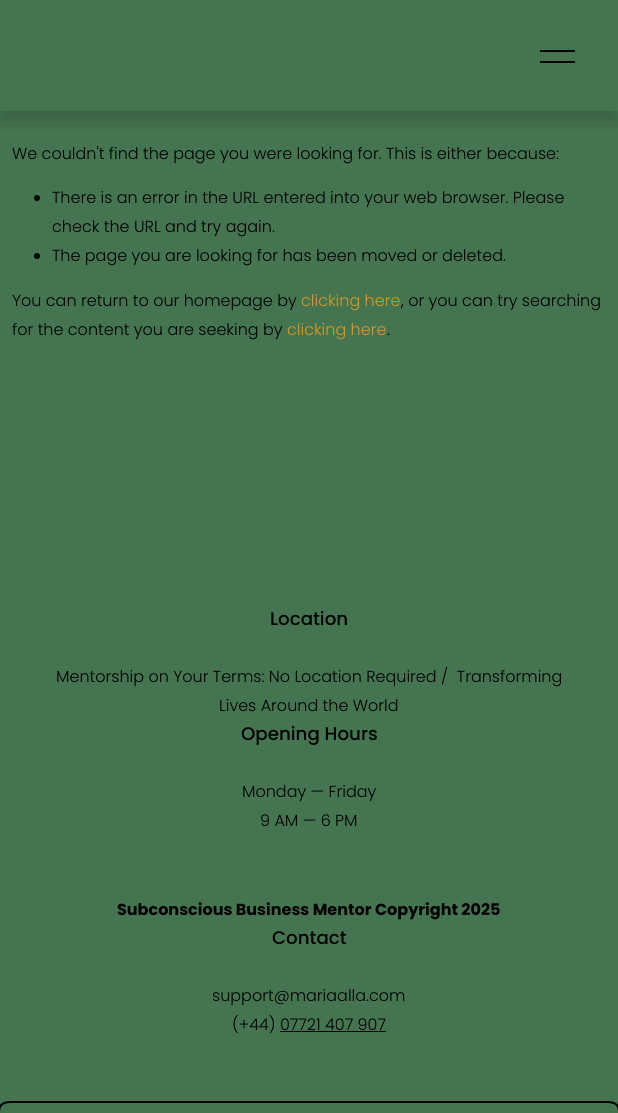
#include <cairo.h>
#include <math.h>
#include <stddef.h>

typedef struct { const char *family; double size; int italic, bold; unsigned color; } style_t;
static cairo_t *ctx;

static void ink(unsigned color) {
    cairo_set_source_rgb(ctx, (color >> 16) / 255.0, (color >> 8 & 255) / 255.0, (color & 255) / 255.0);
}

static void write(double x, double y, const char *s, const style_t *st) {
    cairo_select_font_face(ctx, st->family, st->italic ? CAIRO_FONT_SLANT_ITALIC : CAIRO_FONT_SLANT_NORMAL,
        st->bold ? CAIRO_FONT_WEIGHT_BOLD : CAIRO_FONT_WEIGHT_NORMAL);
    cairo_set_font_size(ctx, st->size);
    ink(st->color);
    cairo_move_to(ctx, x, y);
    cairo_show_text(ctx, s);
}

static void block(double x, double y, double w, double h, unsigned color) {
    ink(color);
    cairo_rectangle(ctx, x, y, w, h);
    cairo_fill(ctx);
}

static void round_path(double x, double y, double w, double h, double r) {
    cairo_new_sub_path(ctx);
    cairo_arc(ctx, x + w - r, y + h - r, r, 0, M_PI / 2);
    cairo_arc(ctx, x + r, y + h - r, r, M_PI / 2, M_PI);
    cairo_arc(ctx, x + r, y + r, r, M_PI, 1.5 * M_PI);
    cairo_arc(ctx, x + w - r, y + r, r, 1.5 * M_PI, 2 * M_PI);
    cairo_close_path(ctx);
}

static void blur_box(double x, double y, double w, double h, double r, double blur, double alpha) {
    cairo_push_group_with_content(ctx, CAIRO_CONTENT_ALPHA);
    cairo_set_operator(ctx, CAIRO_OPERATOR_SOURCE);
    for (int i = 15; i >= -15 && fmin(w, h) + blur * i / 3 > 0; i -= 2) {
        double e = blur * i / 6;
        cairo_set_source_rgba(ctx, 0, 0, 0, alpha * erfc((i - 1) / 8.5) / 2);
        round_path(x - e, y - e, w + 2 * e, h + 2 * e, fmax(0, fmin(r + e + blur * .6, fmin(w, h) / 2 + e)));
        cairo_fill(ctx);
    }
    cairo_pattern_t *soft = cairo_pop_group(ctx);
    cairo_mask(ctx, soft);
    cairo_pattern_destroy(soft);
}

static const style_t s1 = {"Poppins Light", 16, 0, 0, 0x000000};
static const style_t s2 = {"Poppins Light", 16, 0, 0, 0xd69926};
static const style_t s3 = {"Poppins Medium", 18.25, 0, 0, 0x000000};
static const style_t s4 = {"Poppins", 16, 0, 1, 0x000000};

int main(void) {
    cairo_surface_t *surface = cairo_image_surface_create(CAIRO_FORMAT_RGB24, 618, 1113);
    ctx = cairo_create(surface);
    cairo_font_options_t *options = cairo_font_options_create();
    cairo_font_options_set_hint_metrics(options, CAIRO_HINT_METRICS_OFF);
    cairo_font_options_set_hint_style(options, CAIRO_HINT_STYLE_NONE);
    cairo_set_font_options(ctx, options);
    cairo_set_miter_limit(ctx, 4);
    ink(0x457450);
    cairo_paint(ctx);
    cairo_save(ctx);
    cairo_rectangle(ctx, 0, 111, 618, 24);
    cairo_clip(ctx);
    ink(0x3b6344);
    blur_box(0, 12, 618, 111, 0, 6, 1);
    cairo_restore(ctx);
    block(540, 50, 35, 2, 0x000000);
    block(540, 61, 35, 2, 0x000000);
    write(12, 159, "We couldn't find the page you were looking for. This is either because:", &s1);
    cairo_new_path(ctx);
    cairo_arc(ctx, 37, 198, 3, 0, 2 * M_PI);
    cairo_fill(ctx);
    write(52, 203, "There is an error in the URL entered into your web browser. Please", &s1);
    write(52, 232, "check the URL and try again.", &s1);
    cairo_new_path(ctx);
    cairo_arc(ctx, 37, 256, 3, 0, 2 * M_PI);
    cairo_fill(ctx);
    write(52, 261, "The page you are looking for has been moved or deleted.", &s1);
    write(12, 306, "You can return to our homepage by", &s1);
    write(301, 306, "clicking here", &s2);
    write(401, 306, ", or you can try searching", &s1);
    write(12, 335, "for the content you are seeking by", &s1);
    write(287, 335, "clicking here", &s2);
    write(387, 335, ".", &s1);
    write(270, 625, "Location", &s3);
    write(56, 682, "Mentorship on Your Terms: No Location Required /  Transforming", &s1);
    write(219, 711, "Lives Around the World", &s1);
    write(241, 740, "Opening Hours", &s3);
    write(242, 797, "Monday — Friday", &s1);
    write(260, 826, "9 AM — 6 PM", &s1);
    write(117, 915, "Subconscious Business Mentor Copyright 2025", &s4);
    write(272, 944, "Contact", &s3);
    write(212, 1001, "support@mariaalla.com", &s1);
    write(232, 1030, "(+44) 07721 407 907", &s1);
    block(280, 1031, 106, 1, 0x000000);
    cairo_new_path(ctx);
    cairo_move_to(ctx, -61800, 773.5);
    cairo_line_to(ctx, -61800, 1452.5);
    cairo_move_to(ctx, -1, 1113);
    cairo_curve_to(ctx, -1, 1105, 2, 1102, 11.5, 1102);
    cairo_line_to(ctx, 606.5, 1102);
    cairo_curve_to(ctx, 616, 1102, 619, 1105, 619, 1113);
    cairo_set_line_cap(ctx, CAIRO_LINE_CAP_SQUARE);
    cairo_stroke(ctx);
    cairo_surface_write_to_png(surface, "screenshot.png");
    cairo_font_options_destroy(options);
    cairo_destroy(ctx);
    cairo_surface_destroy(surface);
    return 0;
}
